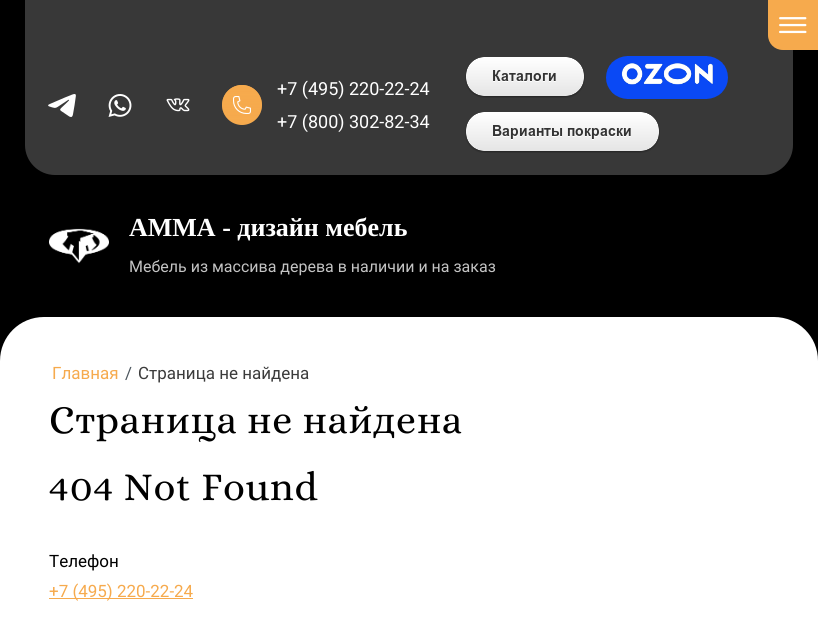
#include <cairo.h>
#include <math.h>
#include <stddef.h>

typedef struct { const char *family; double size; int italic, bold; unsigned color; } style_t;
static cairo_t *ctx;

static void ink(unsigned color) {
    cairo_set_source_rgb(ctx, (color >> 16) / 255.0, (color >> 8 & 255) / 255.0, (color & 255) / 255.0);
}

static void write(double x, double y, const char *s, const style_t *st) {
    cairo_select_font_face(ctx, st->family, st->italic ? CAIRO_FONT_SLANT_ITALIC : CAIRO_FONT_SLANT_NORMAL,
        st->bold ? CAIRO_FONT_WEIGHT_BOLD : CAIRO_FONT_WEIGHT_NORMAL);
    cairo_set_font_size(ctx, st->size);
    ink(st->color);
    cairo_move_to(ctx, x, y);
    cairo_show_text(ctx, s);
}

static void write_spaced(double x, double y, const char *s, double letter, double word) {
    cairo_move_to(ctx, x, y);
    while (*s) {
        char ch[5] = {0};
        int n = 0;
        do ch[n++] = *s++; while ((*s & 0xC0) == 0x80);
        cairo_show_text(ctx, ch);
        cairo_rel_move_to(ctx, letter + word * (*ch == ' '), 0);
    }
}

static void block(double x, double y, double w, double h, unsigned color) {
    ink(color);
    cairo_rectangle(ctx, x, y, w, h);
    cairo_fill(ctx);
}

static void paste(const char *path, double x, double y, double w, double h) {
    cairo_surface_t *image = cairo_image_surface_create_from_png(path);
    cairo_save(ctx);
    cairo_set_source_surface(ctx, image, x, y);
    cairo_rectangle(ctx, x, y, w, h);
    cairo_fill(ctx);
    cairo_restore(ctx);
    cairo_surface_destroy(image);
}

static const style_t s1 = {"Roboto", 18, 0, 0, 0xffffff};
static const style_t s2 = {"Liberation Serif", 26, 0, 1, 0xffffff};
static const style_t s3 = {"Roboto", 16, 0, 0, 0xc4c4c4};
static const style_t s4 = {"Roboto", 17, 0, 0, 0xf6aa4d};
static const style_t s5 = {"Roboto", 17, 0, 0, 0x4c565e};
static const style_t s6 = {"Roboto", 17, 0, 0, 0x3b3b3b};
static const style_t s7 = {"Roboto", 17, 0, 0, 0x000000};

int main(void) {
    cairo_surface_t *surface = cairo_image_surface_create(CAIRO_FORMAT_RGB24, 818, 620);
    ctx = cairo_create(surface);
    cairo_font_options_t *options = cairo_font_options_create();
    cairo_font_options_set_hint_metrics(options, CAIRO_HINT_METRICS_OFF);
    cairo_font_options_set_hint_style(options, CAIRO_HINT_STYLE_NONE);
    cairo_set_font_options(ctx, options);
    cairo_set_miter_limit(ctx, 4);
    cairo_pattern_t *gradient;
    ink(0xffffff);
    cairo_paint(ctx);
    block(0, 0, 818, 361, 0x000000);
    ink(0x383838);
    cairo_new_path(ctx);
    cairo_move_to(ctx, 25, 0);
    cairo_line_to(ctx, 793, 0);
    cairo_line_to(ctx, 793, 145);
    cairo_curve_to(ctx, 793, 161.5, 779.5, 175, 763, 175);
    cairo_line_to(ctx, 55, 175);
    cairo_curve_to(ctx, 38.5, 175, 25, 161.5, 25, 145);
    cairo_close_path(ctx);
    cairo_fill(ctx);
    ink(0xf6aa4d);
    cairo_new_path(ctx);
    cairo_move_to(ctx, 768, 0);
    cairo_line_to(ctx, 818, 0);
    cairo_line_to(ctx, 818, 50);
    cairo_line_to(ctx, 783, 50);
    cairo_curve_to(ctx, 774.5, 50, 768, 43.5, 768, 35);
    cairo_close_path(ctx);
    cairo_fill(ctx);
    paste("pic1.png", 779, 17, 28, 17);
    paste("pic2.png", 48, 94, 28, 23);
    paste("pic3.png", 108, 94, 24, 23);
    paste("pic4.png", 166, 98, 24, 14);
    cairo_arc(ctx, 242, 105, 20, 0, 2 * M_PI);
    cairo_fill(ctx);
    gradient = cairo_pattern_create_linear(242, 85, 242, 125);
    cairo_pattern_add_color_stop_rgba(gradient, 0, 0.965, 0.667, 0.302, 1);
    cairo_pattern_add_color_stop_rgba(gradient, 1, 0.965, 0.667, 0.302, 0);
    cairo_set_source(ctx, gradient);
    cairo_pattern_destroy(gradient);
    cairo_arc(ctx, 242, 105, 20, 0, 2 * M_PI);
    cairo_fill(ctx);
    paste("pic5.png", 233, 96, 18, 18);
    write(277, 95, "+7 (495) 220-22-24", &s1);
    write(277, 128, "+7 (800) 302-82-34", &s1);
    paste("pic6.png", 465, 57, 120, 41);
    paste("pic7.png", 606, 56, 122, 43);
    paste("pic8.png", 465, 112, 195, 41);
    paste("pic9.png", 49, 228, 60, 36);
    write(129, 236, "AMMA - дизайн мебель", &s2);
    write(129, 272, "Мебель из массива дерева в наличии и на заказ", &s3);
    ink(0xffffff);
    cairo_new_path(ctx);
    cairo_move_to(ctx, 44, 317);
    cairo_line_to(ctx, 774, 317);
    cairo_curve_to(ctx, 798.5, 317, 818, 336.5, 818, 361);
    cairo_line_to(ctx, 818, 546);
    cairo_line_to(ctx, 0, 546);
    cairo_line_to(ctx, 0, 361);
    cairo_curve_to(ctx, 0, 336.5, 19.5, 317, 44, 317);
    cairo_close_path(ctx);
    cairo_fill(ctx);
    write(52, 379, "Главная", &s4);
    write(125, 379, "/", &s5);
    write(138, 379, "Страница не найдена", &s6);
    cairo_select_font_face(ctx, "Alice", CAIRO_FONT_SLANT_NORMAL, CAIRO_FONT_WEIGHT_NORMAL);
    cairo_set_font_size(ctx, 40);
    ink(0x000000);
    write_spaced(49, 433, "Страница не найдена", 0.6, 0);
    write_spaced(49, 500, "404 Not Found", 0.6, 0);
    write(49, 567, "Телефон", &s7);
    block(49, 598, 144, 1, 0xf6aa4d);
    write(49, 597, "+7 (495) 220-22-24", &s4);
    cairo_surface_write_to_png(surface, "screenshot.png");
    cairo_font_options_destroy(options);
    cairo_destroy(ctx);
    cairo_surface_destroy(surface);
    return 0;
}
